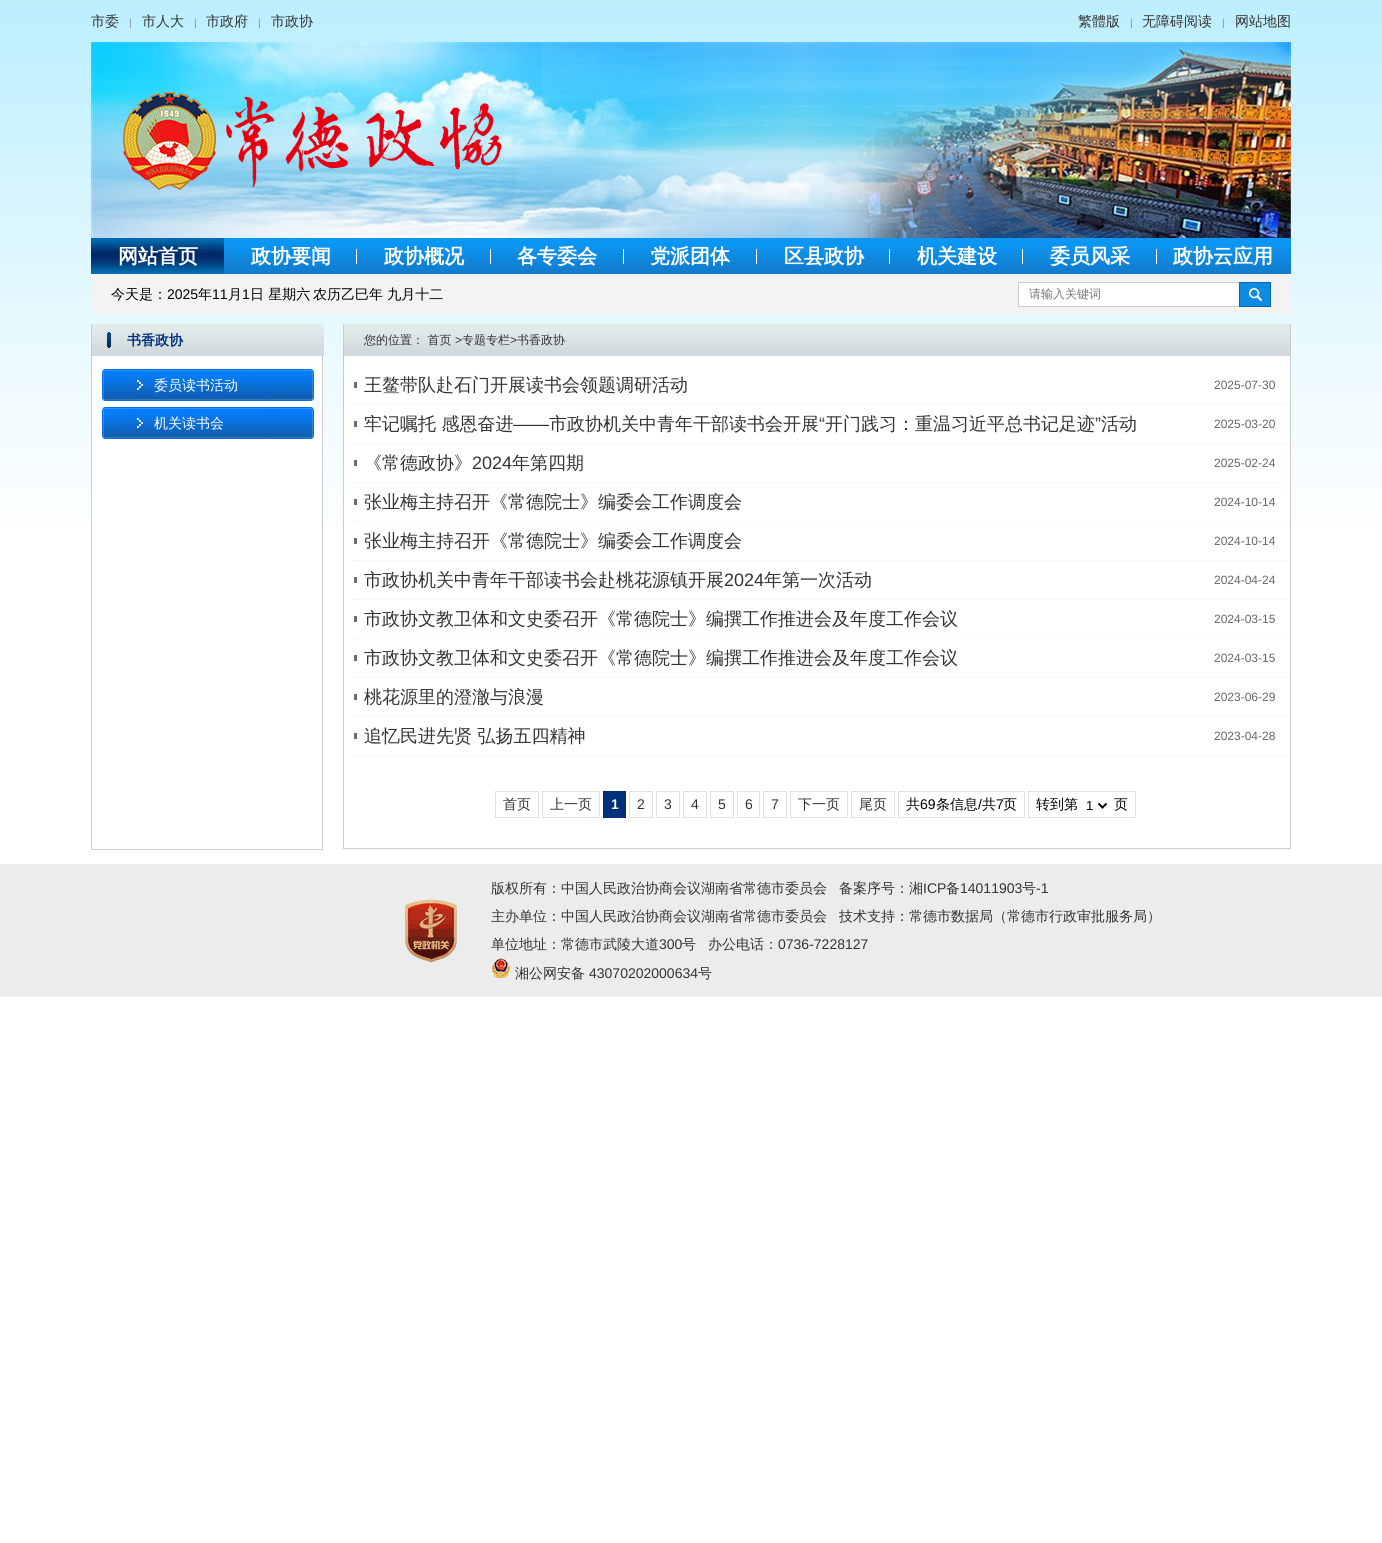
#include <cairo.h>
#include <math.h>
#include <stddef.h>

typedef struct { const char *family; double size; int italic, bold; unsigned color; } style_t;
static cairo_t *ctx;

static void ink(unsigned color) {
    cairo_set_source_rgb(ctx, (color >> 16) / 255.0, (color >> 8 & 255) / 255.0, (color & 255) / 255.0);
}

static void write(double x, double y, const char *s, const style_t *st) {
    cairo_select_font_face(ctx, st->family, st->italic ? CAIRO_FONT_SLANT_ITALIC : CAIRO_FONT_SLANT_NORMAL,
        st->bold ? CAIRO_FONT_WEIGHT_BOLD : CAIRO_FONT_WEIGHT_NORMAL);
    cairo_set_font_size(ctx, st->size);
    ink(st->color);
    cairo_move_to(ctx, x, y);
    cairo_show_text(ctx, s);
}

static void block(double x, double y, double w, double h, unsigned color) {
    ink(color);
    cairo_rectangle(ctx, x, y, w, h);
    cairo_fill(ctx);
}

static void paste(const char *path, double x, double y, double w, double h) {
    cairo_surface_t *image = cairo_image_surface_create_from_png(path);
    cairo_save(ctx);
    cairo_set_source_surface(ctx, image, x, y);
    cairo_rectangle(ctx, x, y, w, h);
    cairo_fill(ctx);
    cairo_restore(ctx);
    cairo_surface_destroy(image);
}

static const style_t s1 = {"WenQuanYi Zen Hei Medium", 14, 0, 0, 0x333333};
static const style_t s2 = {"Liberation Sans", 10, 0, 0, 0x888888};
static const style_t s3 = {"WenQuanYi Zen Hei", 20, 0, 1, 0xffffff};
static const style_t s4 = {"WenQuanYi Zen Hei Medium", 14, 0, 0, 0x000000};
static const style_t s5 = {"Liberation Sans", 14, 0, 0, 0x000000};
static const style_t s6 = {"WenQuanYi Zen Hei Medium", 12, 0, 0, 0x757575};
static const style_t s7 = {"WenQuanYi Zen Hei", 14, 0, 1, 0x002f7b};
static const style_t s8 = {"WenQuanYi Zen Hei Medium", 14, 0, 0, 0xffffff};
static const style_t s9 = {"WenQuanYi Zen Hei Medium", 12, 0, 0, 0x333333};
static const style_t s10 = {"Liberation Sans", 12, 0, 0, 0x333333};
static const style_t s11 = {"WenQuanYi Zen Hei Medium", 18, 0, 0, 0x333333};
static const style_t s12 = {"Liberation Sans", 12, 0, 0, 0x666666};
static const style_t s13 = {"Liberation Sans", 18, 0, 0, 0x333333};
static const style_t s14 = {"Liberation Sans", 14, 0, 1, 0xffffff};
static const style_t s15 = {"Liberation Sans", 14, 0, 0, 0x333333};
static const style_t s16 = {"Liberation Sans", 13, 0, 0, 0x000000};

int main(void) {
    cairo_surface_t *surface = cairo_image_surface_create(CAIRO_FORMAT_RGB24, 1382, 1543);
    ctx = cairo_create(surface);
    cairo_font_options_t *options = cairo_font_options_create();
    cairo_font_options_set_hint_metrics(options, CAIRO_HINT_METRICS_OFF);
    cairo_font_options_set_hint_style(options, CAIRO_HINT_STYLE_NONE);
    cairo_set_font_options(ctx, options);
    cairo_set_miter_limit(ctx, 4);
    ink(0xffffff);
    cairo_paint(ctx);
    paste("pic1.png", 0, 0, 1382, 522);
    write(91, 26, "市委", &s1);
    write(129, 26, "|", &s2);
    write(142, 26, "市人大", &s1);
    write(194, 26, "|", &s2);
    write(206, 26, "市政府", &s1);
    write(258, 26, "|", &s2);
    write(271, 26, "市政协", &s1);
    write(1078, 26, "繁體版", &s1);
    write(1130, 26, "|", &s2);
    write(1142, 26, "无障碍阅读", &s1);
    write(1222, 26, "|", &s2);
    write(1235, 26, "网站地图", &s1);
    paste("pic2.png", 91, 42, 1200, 196);
    paste("pic3.png", 123, 92, 379, 98);
    paste("pic4.png", 224, 238, 1067, 36);
    paste("pic5.png", 91, 238, 133, 36);
    write(118, 263, "网站首页", &s3);
    block(356, 249, 1, 15, 0xffffff);
    write(251, 263, "政协要闻", &s3);
    block(490, 249, 1, 15, 0xffffff);
    write(384, 263, "政协概况", &s3);
    block(623, 249, 1, 15, 0xffffff);
    write(517, 263, "各专委会", &s3);
    block(756, 249, 1, 15, 0xffffff);
    write(650, 263, "党派团体", &s3);
    block(889, 249, 1, 15, 0xffffff);
    write(784, 263, "区县政协", &s3);
    block(1022, 249, 1, 15, 0xffffff);
    write(917, 263, "机关建设", &s3);
    block(1156, 249, 1, 15, 0xffffff);
    write(1050, 263, "委员风采", &s3);
    write(1173, 263, "政协云应用", &s3);
    block(91, 274, 1200, 40, 0xf4f3f3);
    write(111, 299, "今天是：", &s4);
    write(167, 299, "2025", &s5);
    write(198, 299, "年", &s4);
    write(212, 299, "11", &s5);
    write(228, 299, "月", &s4);
    write(242, 299, "1", &s5);
    write(250, 299, "日 星期六", &s4);
    write(313, 299, "农历乙巳年 九月十二", &s4);
    block(1019, 283, 220, 23, 0xffffff);
    block(1018, 282, 221, 1, 0xcccccc);
    block(1018, 306, 221, 1, 0xcccccc);
    block(1018, 282, 1, 25, 0xcccccc);
    write(1029, 298, "请输入关键词", &s6);
    paste("pic6.png", 1239, 282, 32, 25);
    block(92, 356, 230, 166, 0xffffff);
    block(322, 356, 1, 494, 0xcccccc);
    block(91, 849, 232, 1, 0xcccccc);
    block(91, 324, 1, 526, 0xcccccc);
    paste("pic7.png", 92, 324, 232, 32);
    paste("pic8.png", 107, 332, 4, 16);
    write(127, 345, "书香政协", &s7);
    paste("pic9.png", 102, 369, 212, 32);
    write(154, 390, "委员读书活动", &s8);
    paste("pic9.png", 102, 407, 212, 32);
    write(154, 428, "机关读书会", &s8);
    block(344, 356, 946, 166, 0xffffff);
    block(1290, 324, 1, 525, 0xcccccc);
    block(343, 848, 948, 1, 0xcccccc);
    block(343, 324, 1, 525, 0xcccccc);
    paste("pic10.png", 344, 324, 946, 32);
    write(364, 344, "您的位置： 首页", &s9);
    write(455, 344, ">", &s10);
    write(462, 344, "专题专栏", &s9);
    write(510, 344, ">", &s10);
    write(517, 344, "书香政协", &s9);
    block(354, 382, 3, 6, 0x6d6d6d);
    cairo_new_path(ctx);
    cairo_move_to(ctx, 354, 404.5);
    cairo_line_to(ctx, 1290, 404.5);
    ink(0xeeeeee);
    cairo_set_line_width(ctx, 1);
    cairo_set_dash(ctx, (double[]){1, 1}, 2, 0);
    cairo_stroke(ctx);
    write(364, 391, "王鳌带队赴石门开展读书会领题调研活动", &s11);
    write(1214, 389, "2025-07-30", &s12);
    block(354, 421, 3, 6, 0x6d6d6d);
    cairo_new_path(ctx);
    cairo_move_to(ctx, 354, 443.5);
    cairo_line_to(ctx, 1290, 443.5);
    ink(0xeeeeee);
    cairo_stroke(ctx);
    write(364, 430, "牢记嘱托 感恩奋进", &s11);
    write(513, 430, "——", &s13);
    write(549, 430, "市政协机关中青年干部读书会开展", &s11);
    write(819, 430, "“", &s13);
    write(825, 430, "开门践习：重温习近平总书记足迹", &s11);
    write(1095, 430, "”", &s13);
    write(1101, 430, "活动", &s11);
    write(1214, 428, "2025-03-20", &s12);
    block(354, 460, 3, 6, 0x6d6d6d);
    cairo_new_path(ctx);
    cairo_move_to(ctx, 354, 482.5);
    cairo_line_to(ctx, 1290, 482.5);
    ink(0xeeeeee);
    cairo_stroke(ctx);
    write(364, 469, "《常德政协》", &s11);
    write(472, 469, "2024", &s13);
    write(512, 469, "年第四期", &s11);
    write(1214, 467, "2025-02-24", &s12);
    block(354, 499, 3, 6, 0x6d6d6d);
    cairo_new_path(ctx);
    cairo_move_to(ctx, 354, 521.5);
    cairo_line_to(ctx, 1290, 521.5);
    ink(0xeeeeee);
    cairo_stroke(ctx);
    write(364, 508, "张业梅主持召开《常德院士》编委会工作调度会", &s11);
    write(1214, 506, "2024-10-14", &s12);
    block(354, 538, 3, 6, 0x6d6d6d);
    cairo_new_path(ctx);
    cairo_move_to(ctx, 354, 560.5);
    cairo_line_to(ctx, 1290, 560.5);
    ink(0xeeeeee);
    cairo_stroke(ctx);
    write(364, 547, "张业梅主持召开《常德院士》编委会工作调度会", &s11);
    write(1214, 545, "2024-10-14", &s12);
    block(354, 577, 3, 6, 0x6d6d6d);
    cairo_new_path(ctx);
    cairo_move_to(ctx, 354, 599.5);
    cairo_line_to(ctx, 1290, 599.5);
    ink(0xeeeeee);
    cairo_stroke(ctx);
    write(364, 586, "市政协机关中青年干部读书会赴桃花源镇开展", &s11);
    write(724, 586, "2024", &s13);
    write(764, 586, "年第一次活动", &s11);
    write(1214, 584, "2024-04-24", &s12);
    block(354, 616, 3, 6, 0x6d6d6d);
    cairo_new_path(ctx);
    cairo_move_to(ctx, 354, 638.5);
    cairo_line_to(ctx, 1290, 638.5);
    ink(0xeeeeee);
    cairo_stroke(ctx);
    write(364, 625, "市政协文教卫体和文史委召开《常德院士》编撰工作推进会及年度工作会议", &s11);
    write(1214, 623, "2024-03-15", &s12);
    block(354, 655, 3, 6, 0x6d6d6d);
    cairo_new_path(ctx);
    cairo_move_to(ctx, 354, 677.5);
    cairo_line_to(ctx, 1290, 677.5);
    ink(0xeeeeee);
    cairo_stroke(ctx);
    write(364, 664, "市政协文教卫体和文史委召开《常德院士》编撰工作推进会及年度工作会议", &s11);
    write(1214, 662, "2024-03-15", &s12);
    block(354, 694, 3, 6, 0x6d6d6d);
    cairo_new_path(ctx);
    cairo_move_to(ctx, 354, 716.5);
    cairo_line_to(ctx, 1290, 716.5);
    ink(0xeeeeee);
    cairo_stroke(ctx);
    write(364, 703, "桃花源里的澄澈与浪漫", &s11);
    write(1214, 701, "2023-06-29", &s12);
    block(354, 733, 3, 6, 0x6d6d6d);
    cairo_new_path(ctx);
    cairo_move_to(ctx, 354, 755.5);
    cairo_line_to(ctx, 1290, 755.5);
    ink(0xeeeeee);
    cairo_stroke(ctx);
    write(364, 742, "追忆民进先贤 弘扬五四精神", &s11);
    write(1214, 740, "2023-04-28", &s12);
    cairo_rectangle(ctx, 495.5, 791.5, 43, 26);
    ink(0xe1e1e1);
    cairo_set_dash(ctx, NULL, 0, 0);
    cairo_stroke(ctx);
    write(503, 809, "首页", &s1);
    cairo_rectangle(ctx, 542.5, 791.5, 57, 26);
    ink(0xe1e1e1);
    cairo_stroke(ctx);
    write(550, 809, "上一页", &s1);
    block(603, 791, 23, 27, 0x002f7b);
    write(611, 809, "1", &s14);
    cairo_rectangle(ctx, 629.5, 791.5, 23, 26);
    ink(0xe1e1e1);
    cairo_stroke(ctx);
    write(637, 809, "2", &s15);
    cairo_rectangle(ctx, 656.5, 791.5, 23, 26);
    ink(0xe1e1e1);
    cairo_stroke(ctx);
    write(664, 809, "3", &s15);
    cairo_rectangle(ctx, 683.5, 791.5, 23, 26);
    ink(0xe1e1e1);
    cairo_stroke(ctx);
    write(691, 809, "4", &s15);
    cairo_rectangle(ctx, 710.5, 791.5, 23, 26);
    ink(0xe1e1e1);
    cairo_stroke(ctx);
    write(718, 809, "5", &s15);
    cairo_rectangle(ctx, 737.5, 791.5, 22, 26);
    ink(0xe1e1e1);
    cairo_stroke(ctx);
    write(745, 809, "6", &s15);
    cairo_rectangle(ctx, 763.5, 791.5, 23, 26);
    ink(0xe1e1e1);
    cairo_stroke(ctx);
    write(771, 809, "7", &s15);
    cairo_rectangle(ctx, 790.5, 791.5, 57, 26);
    ink(0xe1e1e1);
    cairo_stroke(ctx);
    write(798, 809, "下一页", &s1);
    cairo_rectangle(ctx, 851.5, 791.5, 43, 26);
    ink(0xe1e1e1);
    cairo_stroke(ctx);
    write(859, 809, "尾页", &s1);
    cairo_rectangle(ctx, 898.5, 791.5, 126, 26);
    ink(0xe1e1e1);
    cairo_stroke(ctx);
    write(906, 809, "共", &s4);
    write(920, 809, "69", &s5);
    write(936, 809, "条信息", &s4);
    write(978, 809, "/", &s5);
    write(982, 809, "共", &s4);
    write(996, 809, "7", &s5);
    write(1003, 809, "页", &s4);
    cairo_rectangle(ctx, 1028.5, 791.5, 107, 26);
    ink(0xe1e1e1);
    cairo_stroke(ctx);
    write(1036, 809, "转到第", &s4);
    cairo_new_path(ctx);
    cairo_move_to(ctx, 1098.5, 803.5);
    cairo_line_to(ctx, 1102.5, 807.5);
    cairo_line_to(ctx, 1106.5, 803.5);
    cairo_set_line_width(ctx, 2);
    cairo_stroke(ctx);
    write(1086, 810, "1", &s16);
    write(1114, 809, "页", &s4);
    block(0, 864, 1382, 133, 0xececec);
    paste("pic11.png", 405, 899, 52, 64);
    write(491, 893, "版权所有：中国人民政治协商会议湖南省常德市委员会", &s1);
    write(839, 893, "备案序号：湘", &s1);
    write(923, 893, "ICP", &s15);
    write(946, 893, "备", &s1);
    write(960, 893, "14011903", &s15);
    write(1022, 893, "号", &s1);
    write(1036, 893, "-1", &s15);
    write(491, 921, "主办单位：中国人民政治协商会议湖南省常德市委员会", &s1);
    write(839, 921, "技术支持：常德市数据局（常德市行政审批服务局）", &s1);
    write(491, 949, "单位地址：常德市武陵大道", &s1);
    write(659, 949, "300", &s15);
    write(682, 949, "号", &s1);
    write(708, 949, "办公电话：", &s1);
    write(778, 949, "0736-7228127", &s15);
    paste("pic12.png", 492, 958, 18, 20);
    write(515, 978, "湘公网安备", &s1);
    write(589, 978, "43070202000634", &s15);
    write(698, 978, "号", &s1);
    cairo_surface_write_to_png(surface, "screenshot.png");
    cairo_font_options_destroy(options);
    cairo_destroy(ctx);
    cairo_surface_destroy(surface);
    return 0;
}
